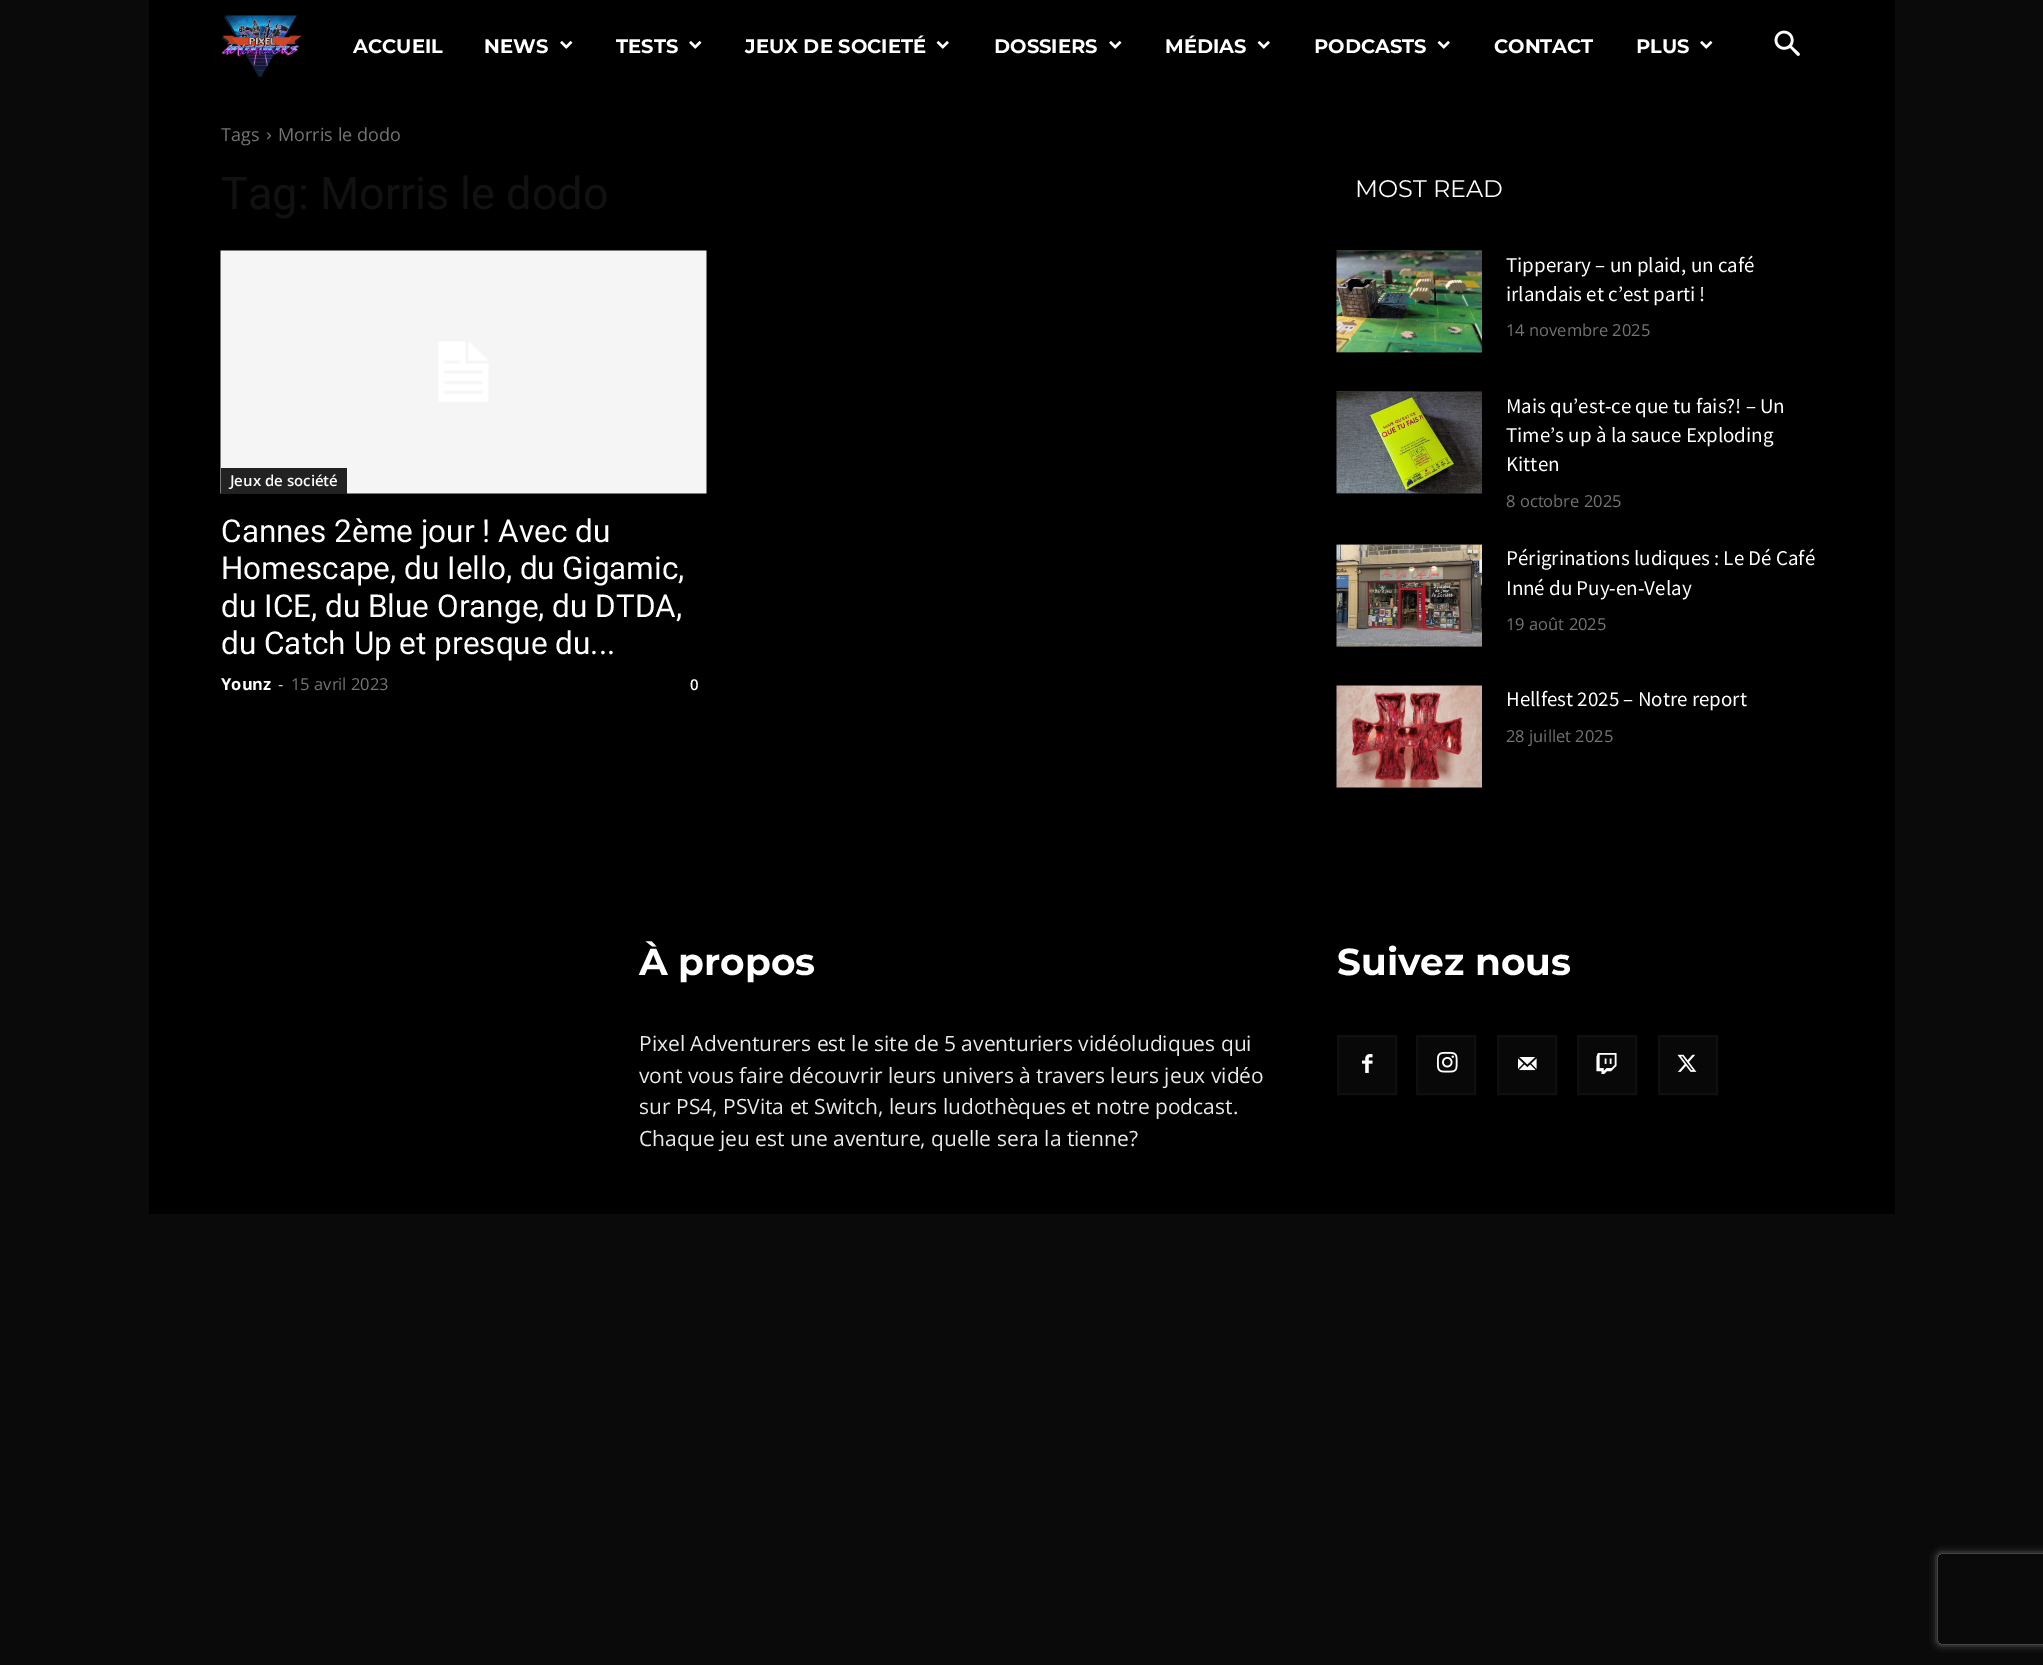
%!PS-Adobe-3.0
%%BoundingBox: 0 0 2043 1665
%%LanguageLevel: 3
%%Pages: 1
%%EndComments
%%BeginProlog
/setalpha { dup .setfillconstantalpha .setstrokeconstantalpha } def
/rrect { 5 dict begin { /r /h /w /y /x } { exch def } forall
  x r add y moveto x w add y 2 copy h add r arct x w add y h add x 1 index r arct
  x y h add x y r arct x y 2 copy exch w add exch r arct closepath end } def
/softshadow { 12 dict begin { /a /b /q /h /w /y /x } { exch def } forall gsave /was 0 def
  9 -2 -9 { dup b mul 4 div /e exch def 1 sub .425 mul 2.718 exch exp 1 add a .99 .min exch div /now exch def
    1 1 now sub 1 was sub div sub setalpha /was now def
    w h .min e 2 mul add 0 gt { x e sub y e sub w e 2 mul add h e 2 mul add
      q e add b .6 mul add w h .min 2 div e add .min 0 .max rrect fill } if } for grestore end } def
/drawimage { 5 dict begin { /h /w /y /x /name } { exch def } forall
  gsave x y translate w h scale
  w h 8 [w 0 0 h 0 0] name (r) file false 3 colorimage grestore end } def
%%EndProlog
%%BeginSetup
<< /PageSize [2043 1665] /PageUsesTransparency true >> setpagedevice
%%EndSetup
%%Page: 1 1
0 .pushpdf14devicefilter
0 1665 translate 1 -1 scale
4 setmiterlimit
0.039 setgray
0 0 2043 1665 rectfill
0 setgray
149 0 1746 1214 rectfill
(images/1.raw) 221 15 81 63 drawimage
(images/2.raw) 560 41 13 8 drawimage
(images/2.raw) 689 41 13 8 drawimage
(images/3.raw) 936 41 13 8 drawimage
(images/2.raw) 1109 41 13 8 drawimage
(images/3.raw) 1257 41 13 8 drawimage
(images/3.raw) 1437 41 13 8 drawimage
(images/2.raw) 1700 41 13 8 drawimage
(images/4.raw) 1774 30 26 26 drawimage
(images/5.raw) 267 132 4 8 drawimage
(images/6.raw) 220 250 487 244 drawimage
0.133 setgray
221 468 126 26 rectfill
(images/7.raw) 1336 250 146 103 drawimage
(images/8.raw) 1336 391 146 103 drawimage
(images/9.raw) 1336 544 146 103 drawimage
(images/10.raw) 1336 685 146 103 drawimage
0.031 setgray
1339 1037 56 56 rectfill
(images/11.raw) 1362 1054 11 19 drawimage
0.059 setgray
2 setlinewidth
1338 1036 58 58 rectstroke
0.031 setgray
1418 1037 56 56 rectfill
(images/12.raw) 1437 1051 21 22 drawimage
0.059 setgray
1417 1036 58 58 rectstroke
0.031 setgray
1499 1037 56 56 rectfill
(images/13.raw) 1518 1057 19 14 drawimage
0.059 setgray
1498 1036 58 58 rectstroke
0.031 setgray
1579 1037 56 56 rectfill
(images/14.raw) 1596 1053 21 21 drawimage
0.059 setgray
1578 1036 58 58 rectstroke
0.031 setgray
1660 1037 56 56 rectfill
(images/15.raw) 1677 1054 20 18 drawimage
0.059 setgray
1659 1036 58 58 rectstroke
gsave
newpath 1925 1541 moveto 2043 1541 lineto 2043 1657 lineto 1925 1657 lineto closepath 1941 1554 moveto 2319 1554 lineto 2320.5 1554 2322 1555.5 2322 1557 curveto 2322 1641 lineto 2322 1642.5 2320.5 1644 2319 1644 curveto 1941 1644 lineto 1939.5 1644 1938 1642.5 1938 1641 curveto 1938 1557 lineto 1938 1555.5 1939.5 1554 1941 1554 curveto closepath eoclip newpath
0.502 setgray
1938 1554 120 90 3 4 1 softshadow
grestore
/Montserrat-Bold [19.5 0 0 -19.5 0 0] selectfont
1 setgray
353 53 moveto (ACCUEIL) show
484 53 moveto (NEWS) show
616 53 moveto (TESTS) show
745 53 moveto (JEUX DE SOCIETÉ) show
994 53 moveto (DOSSIERS) show
1165 53 moveto (MÉDIAS) show
1314 53 moveto (PODCASTS) show
1494 53 moveto (CONTACT) show
1636 53 moveto (PLUS) show
/OpenSans-Regular [18 0 0 -18 0 0] selectfont
0.455 setgray
221 141 moveto (Tags) show
278 141 moveto (Morris le dodo) show
/Roboto-Regular [45 0 0 -45 0 0] selectfont
0.067 setgray
221 209 moveto (Tag: Morris le dodo) show
/OpenSans-SemiBold [15 0 0 -15 0 0] selectfont
1 setgray
230 486 moveto (Jeux de société) show
/Roboto-Regular [31.5 0 0 -31.5 0 0] selectfont
221 542 moveto (Cannes 2ème jour ! Avec du) show
221 579 moveto (Homescape, du Iello, du Gigamic,) show
221 617 moveto (du ICE, du Blue Orange, du DTDA,) show
221 654 moveto (du Catch Up et presque du...) show
/OpenSans-Bold [16.5 0 0 -16.5 0 0] selectfont
221 690 moveto (Younz) show
/OpenSans-Regular [16.5 0 0 -16.5 0 0] selectfont
0.8 setgray
278 690 moveto (-) show
0.455 setgray
291 690 moveto (15 avril 2023) show
/OpenSans-SemiBold [15 0 0 -15 0 0] selectfont
1 setgray
690 690 moveto (0) show
/Montserrat-Regular [24 0 0 -24 0 0] selectfont
1355 197 moveto (MOST READ) show
/SourceSansPro-Regular [21 0 0 -21 0 0] selectfont
1506 272 moveto (Tipperary – un plaid, un café) show
1506 301 moveto (irlandais et c’est parti !) show
/OpenSans-Regular [16.5 0 0 -16.5 0 0] selectfont
0.455 setgray
1506 336 moveto (14 novembre 2025) show
/SourceSansPro-Regular [21 0 0 -21 0 0] selectfont
1 setgray
1506 413 moveto (Mais qu’est-ce que tu fais?! – Un) show
1506 442 moveto (Time’s up à la sauce Exploding) show
1506 471 moveto (Kitten) show
/OpenSans-Regular [16.5 0 0 -16.5 0 0] selectfont
0.455 setgray
1506 507 moveto (8 octobre 2025) show
/SourceSansPro-Regular [21 0 0 -21 0 0] selectfont
1 setgray
1506 565 moveto (Périgrinations ludiques : Le Dé Café) show
1506 595 moveto (Inné du Puy-en-Velay) show
/OpenSans-Regular [16.5 0 0 -16.5 0 0] selectfont
0.455 setgray
1506 630 moveto (19 août 2025) show
/SourceSansPro-Regular [21 0 0 -21 0 0] selectfont
1 setgray
1506 706 moveto (Hellfest 2025 – Notre report) show
/OpenSans-Regular [16.5 0 0 -16.5 0 0] selectfont
0.455 setgray
1506 742 moveto (28 juillet 2025) show
/Montserrat-Bold [37.5 0 0 -37.5 0 0] selectfont
1 setgray
639 975 moveto (À propos) show
/OpenSans-Regular [21 0 0 -21 0 0] selectfont
0.918 setgray
639 1051 moveto (Pixel Adventurers est le site de 5 aventuriers vidéoludiques qui) show
639 1083 moveto (vont vous faire découvrir leurs univers à travers leurs jeux vidéo) show
639 1114 moveto (sur PS4, PSVita et Switch, leurs ludothèques et notre podcast.) show
639 1146 moveto (Chaque jeu est une aventure, quelle sera la tienne?) show
/Montserrat-Bold [37.5 0 0 -37.5 0 0] selectfont
1 setgray
1337 975 moveto (Suivez nous) show
.poppdf14devicefilter showpage
%%EOF
